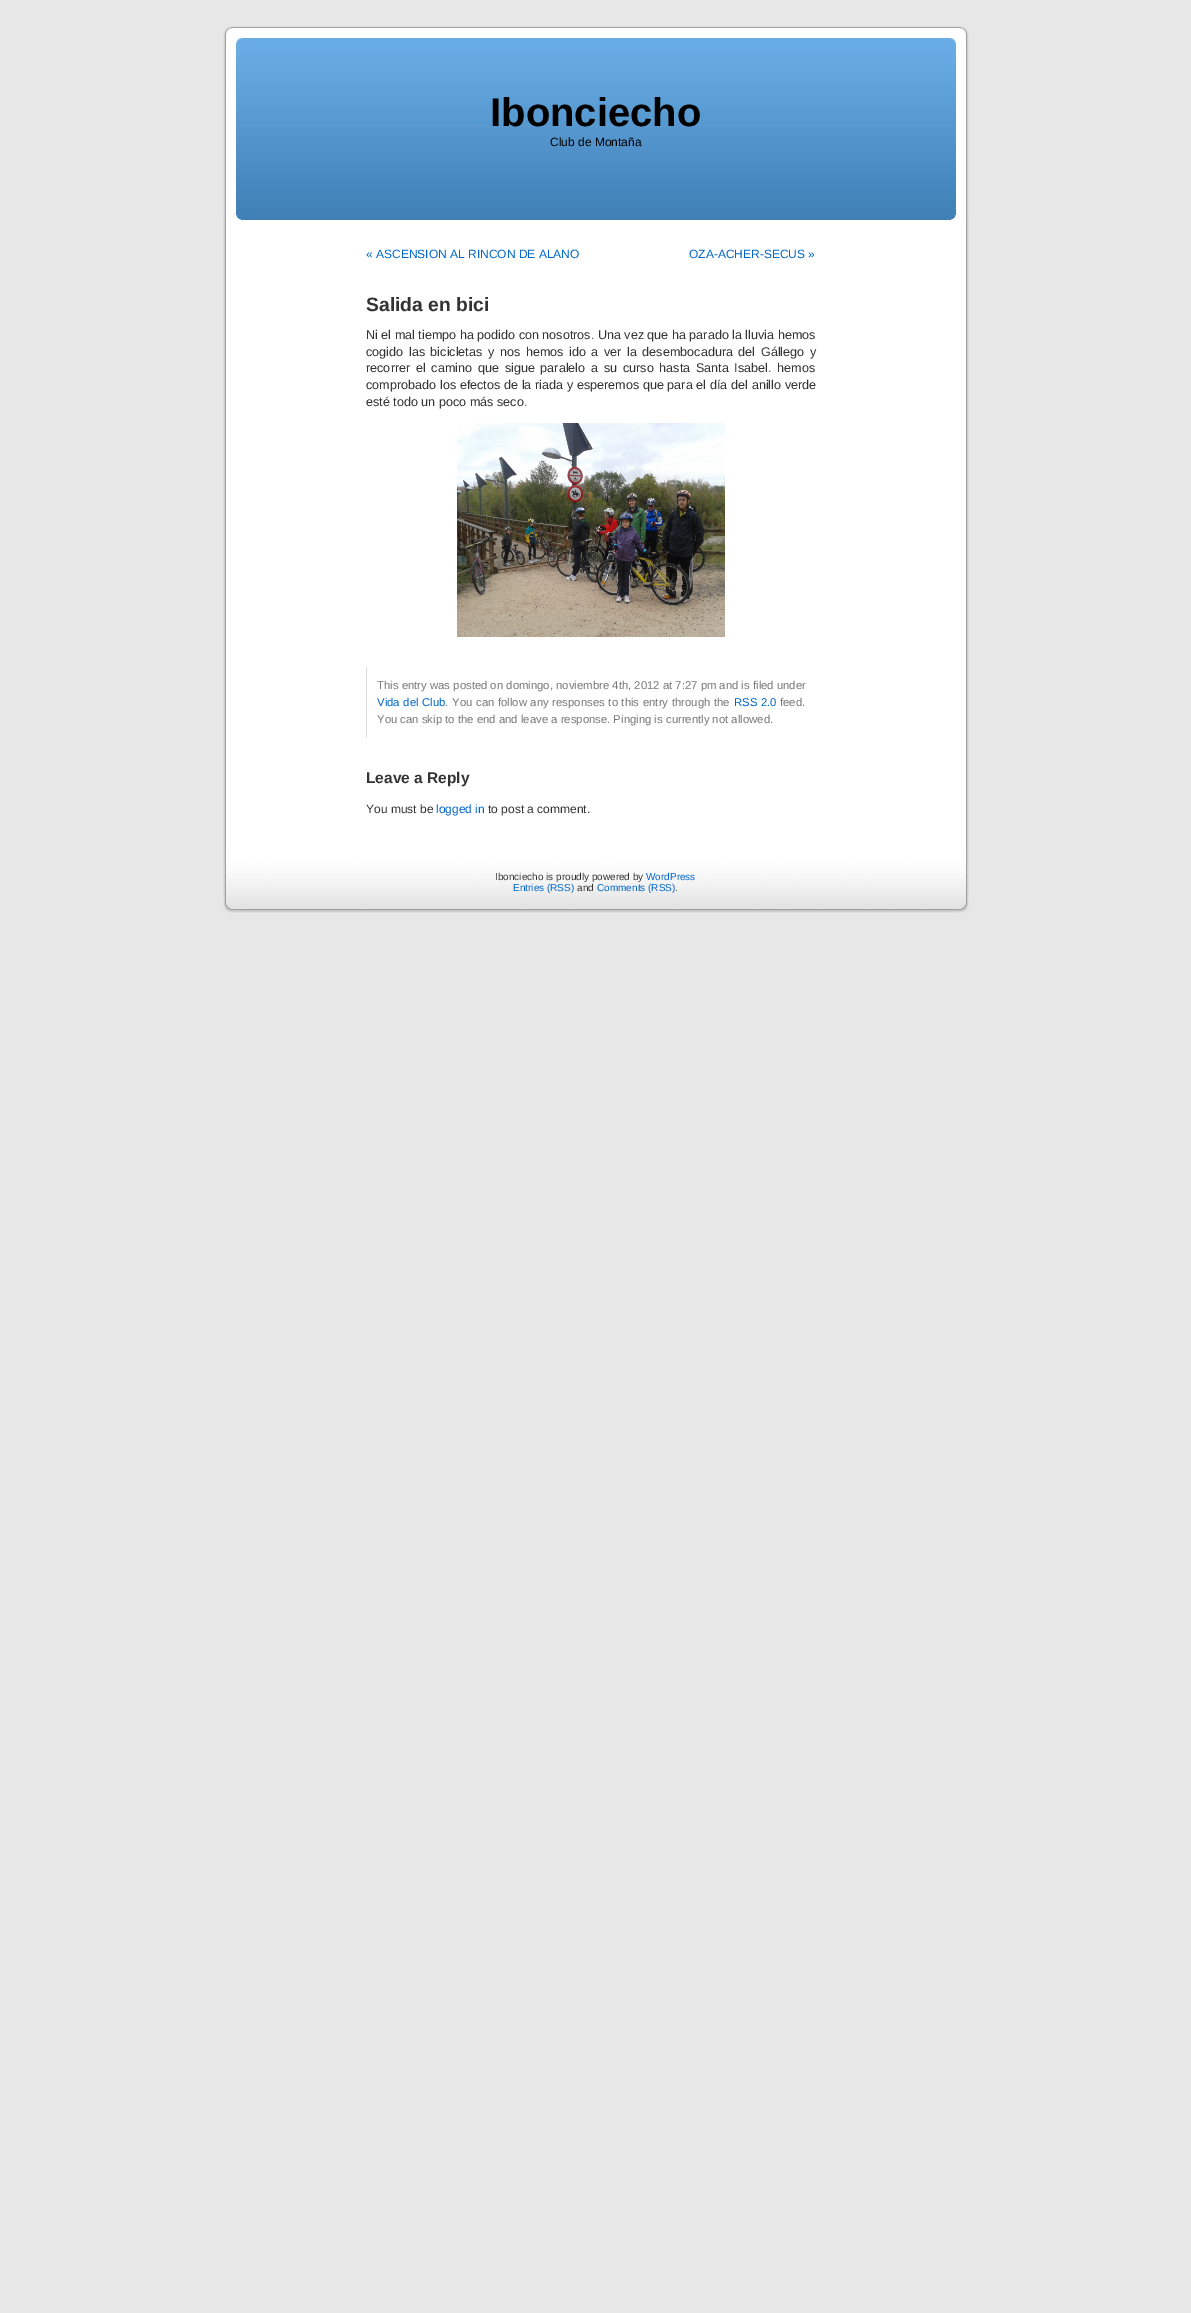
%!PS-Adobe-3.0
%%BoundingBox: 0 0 1191 2313
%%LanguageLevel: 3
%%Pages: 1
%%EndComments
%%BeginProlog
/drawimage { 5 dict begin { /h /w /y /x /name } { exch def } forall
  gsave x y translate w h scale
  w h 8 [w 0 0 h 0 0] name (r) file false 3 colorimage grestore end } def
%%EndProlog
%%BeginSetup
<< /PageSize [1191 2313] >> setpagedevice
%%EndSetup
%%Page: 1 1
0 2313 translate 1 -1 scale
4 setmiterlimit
0.906 setgray
0 0 1191 2313 rectfill
(images/1.raw) 223 220 746 631 drawimage
(images/2.raw) 217 20 758 200 drawimage
(images/3.raw) 457 423 268 214 drawimage
0.867 setgray
366 667 1 71 rectfill
(images/4.raw) 223 851 746 62 drawimage
/LiberationSans-Bold [40 0 0 -40 0 0] selectfont
0 setgray
490 126 moveto (Ibonciecho) show
/LiberationSans-Regular [12 0 0 -12 0 0] selectfont
550 146 moveto (Club de Montaña) show
0 0.4 0.8 setrgbcolor
366 258 moveto (« ASCENSION AL RINCON DE ALANO) show
689 258 moveto (OZA-ACHER-SECUS ») show
/LiberationSans-Bold [19.25 0 0 -19.25 0 0] selectfont
0.2 setgray
366 311 moveto (Salida en bici) show
/LiberationSans-Regular [12.6 0 0 -12.6 0 0] selectfont
366 339 moveto (Ni el mal tiempo ha podido con nosotros. Una vez que ha parado la lluvia hemos) show
366 356 moveto 2.1 0 32 (cogido las bicicletas y nos hemos ido a ver la desembocadura del Gállego y) widthshow
366 372 moveto 2.25 0 32 (recorrer el camino que sigue paralelo a su curso hasta Santa Isabel. hemos) widthshow
366 389 moveto 0.2 0 32 (comprobado los efectos de la riada y esperemos que para el día del anillo verde) widthshow
366 406 moveto (esté todo un poco más seco.) show
/LiberationSans-Regular [11.35 0 0 -11.35 0 0] selectfont
0.467 setgray
377 689 moveto (This entry was posted on domingo, noviembre 4th, 2012 at 7:27 pm and is filed under) show
0 0.4 0.8 setrgbcolor
377 706 moveto 0.5 0 32 (Vida del Club) widthshow
0.467 setgray
445 706 moveto (.) show
452 706 moveto 0.5 0 32 (You can follow any responses to this entry through the) widthshow
0 0.4 0.8 setrgbcolor
734 706 moveto 0.5 0 32 (RSS 2.0) widthshow
0.467 setgray
780 706 moveto (feed.) show
377 723 moveto (You can skip to the end and leave a response. Pinging is currently not allowed.) show
/LiberationSans-Bold [15.5 0 0 -15.5 0 0] selectfont
0.2 setgray
366 783 moveto (Leave a Reply) show
/LiberationSans-Regular [12 0 0 -12 0 0] selectfont
366 813 moveto (You must be) show
0 0.4 0.8 setrgbcolor
436 813 moveto (logged in) show
0.2 setgray
488 813 moveto (to post a comment.) show
/LiberationSans-Regular [10 0 0 -10 0 0] selectfont
495 880 moveto (Ibonciecho is proudly powered by) show
0 0.4 0.8 setrgbcolor
646 880 moveto (WordPress) show
513 891 moveto (Entries \(RSS\)) show
0.2 setgray
577 891 moveto (and) show
0 0.4 0.8 setrgbcolor
597 891 moveto (Comments \(RSS\)) show
0.2 setgray
675 891 moveto (.) show
showpage
%%EOF
